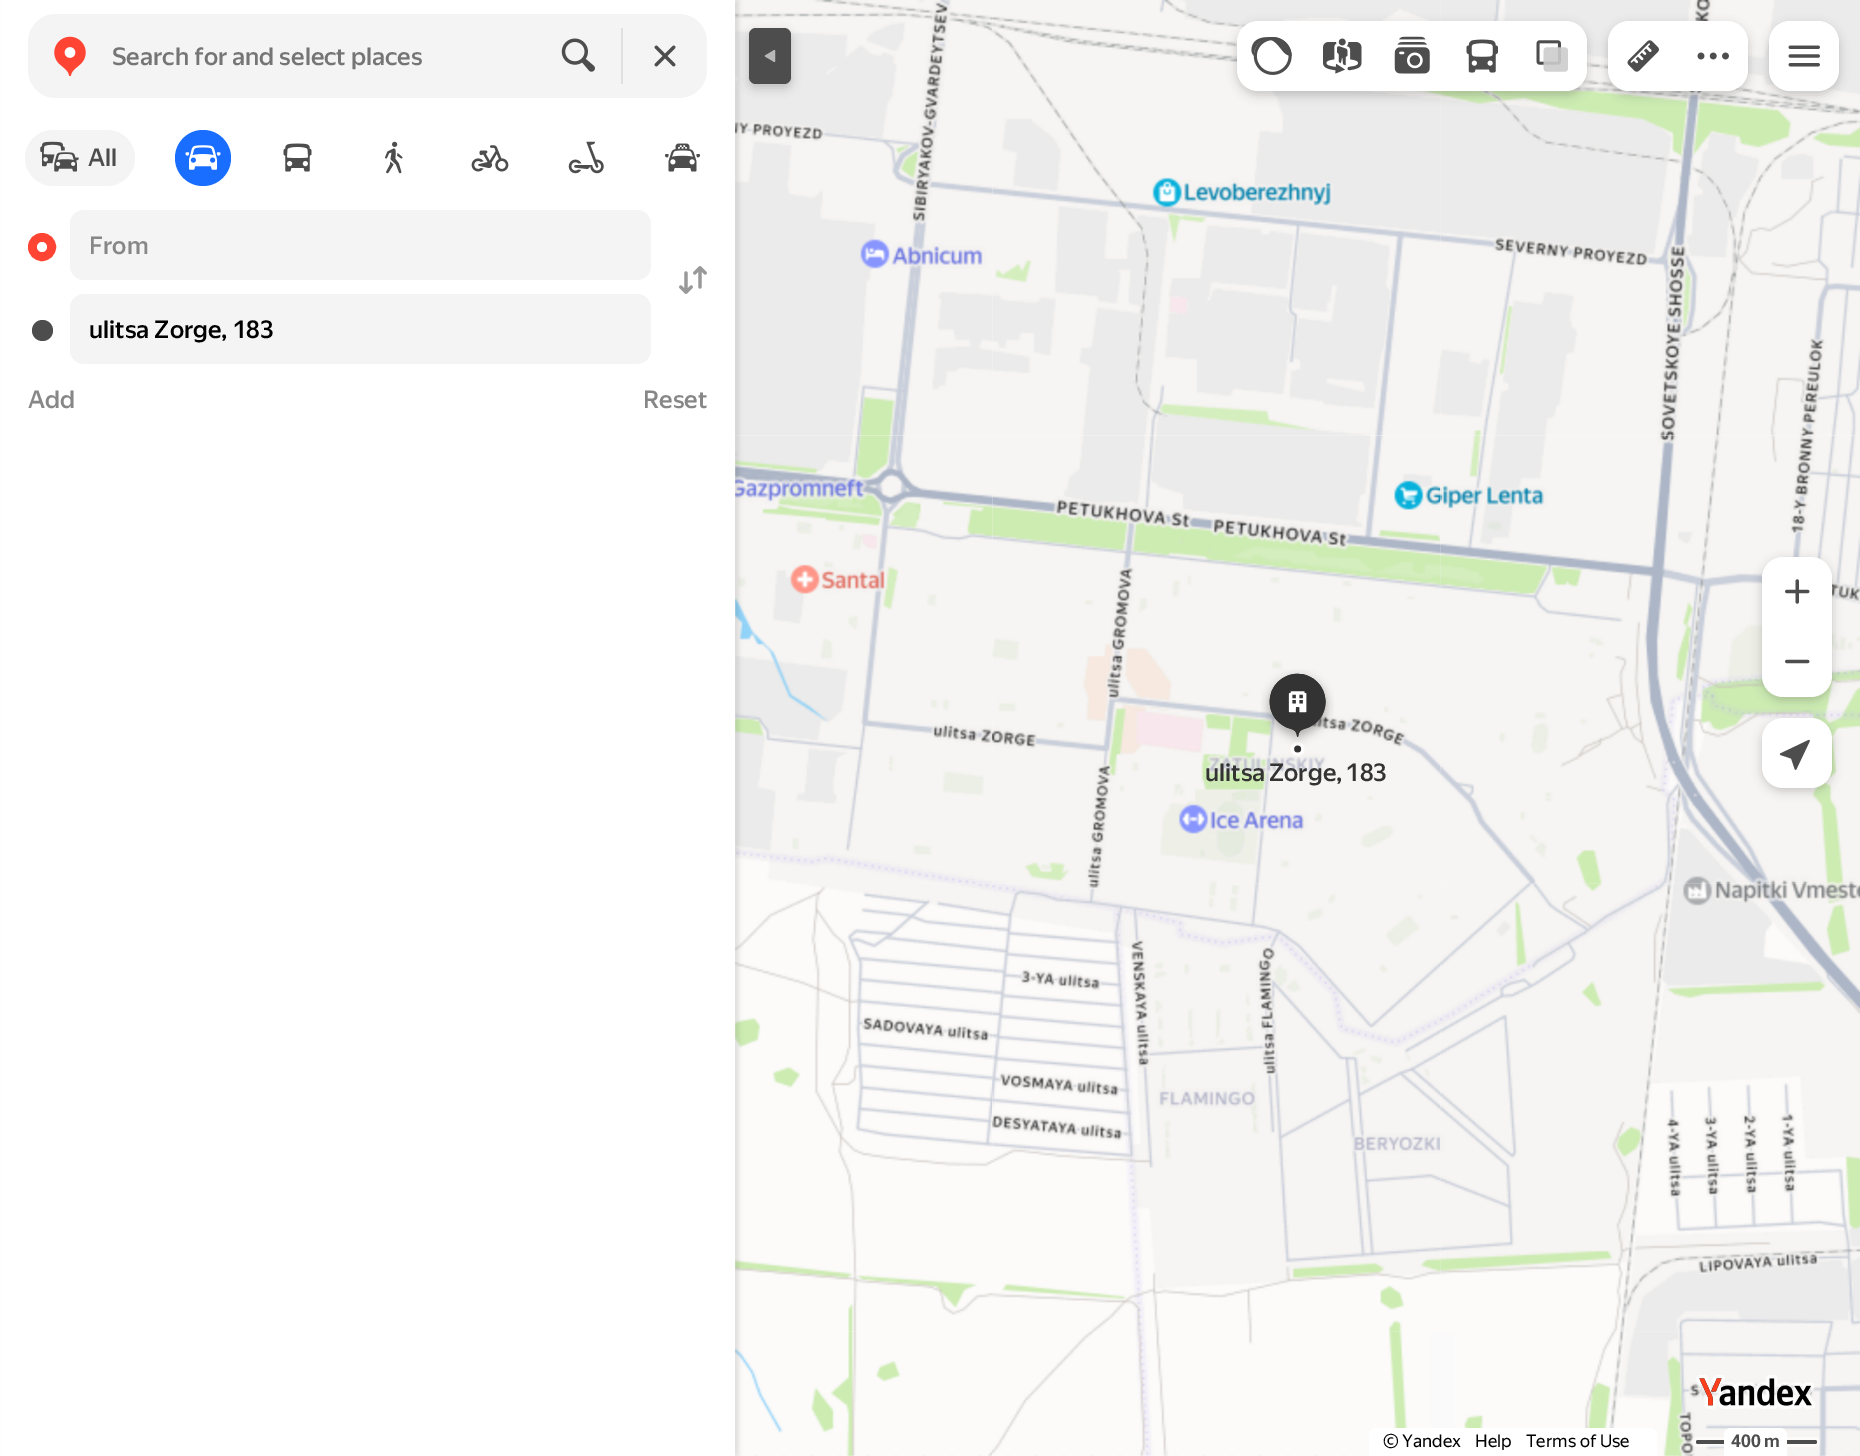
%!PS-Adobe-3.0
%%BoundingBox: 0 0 1860 1456
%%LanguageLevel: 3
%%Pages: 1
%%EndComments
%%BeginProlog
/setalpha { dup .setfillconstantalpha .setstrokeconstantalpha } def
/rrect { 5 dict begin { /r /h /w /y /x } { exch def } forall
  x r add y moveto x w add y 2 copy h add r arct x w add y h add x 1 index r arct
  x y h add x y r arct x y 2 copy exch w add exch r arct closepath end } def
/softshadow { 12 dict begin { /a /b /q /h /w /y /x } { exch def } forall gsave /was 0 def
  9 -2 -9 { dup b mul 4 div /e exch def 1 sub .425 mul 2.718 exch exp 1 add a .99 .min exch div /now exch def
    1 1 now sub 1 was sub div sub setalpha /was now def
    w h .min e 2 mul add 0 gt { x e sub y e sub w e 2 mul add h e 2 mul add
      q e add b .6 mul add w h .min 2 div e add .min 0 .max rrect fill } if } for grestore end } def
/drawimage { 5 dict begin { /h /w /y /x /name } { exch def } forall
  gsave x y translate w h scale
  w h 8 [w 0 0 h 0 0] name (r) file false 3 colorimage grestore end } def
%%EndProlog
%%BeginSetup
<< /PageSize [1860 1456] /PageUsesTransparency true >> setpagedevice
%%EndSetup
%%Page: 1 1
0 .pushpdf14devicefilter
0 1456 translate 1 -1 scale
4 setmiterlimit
1 setgray
0 0 1860 1456 rectfill
(images/1.raw) 735 0 1125 1456 drawimage
(images/27.raw) 992 0 449 436 drawimage
(images/28.raw) 1440 0 420 436 drawimage
(images/30.raw) 992 435 449 449 drawimage
(images/31.raw) 1440 435 420 449 drawimage
(images/33.raw) 992 883 449 449 drawimage
(images/29.raw) 735 435 258 449 drawimage
(images/26.raw) 735 0 257 436 drawimage
(images/32.raw) 735 883 257 449 drawimage
(images/35.raw) 735 1331 257 125 drawimage
0 setgray
4 0 735 1456 0 2 0.1 softshadow
749 32 42 56 7 5 0.2 softshadow
1 setgray
1 0 734 1456 rectfill
0.957 setgray
28 14 679 84 28 rrect fill
(images/2.raw) 54 36 32 41 drawimage
(images/3.raw) 561 38 34 34 drawimage
0.878 setgray
621 28 2 56 rectfill
(images/4.raw) 654 45 22 22 drawimage
0 setgray
1237 25 350 70 21 5 0.2 softshadow
1 setgray
newpath 1258 21 moveto 1307 21 lineto 1307 91 lineto 1258 91 lineto 1246.5 91 1237 81.5 1237 70 curveto 1237 42 lineto 1237 30.5 1246.5 21 1258 21 curveto closepath fill
(images/5.raw) 1251 37 41 38 drawimage
1307 21 210 70 rectfill
(images/6.raw) 1323 38 39 36 drawimage
newpath 1517 21 moveto 1566 21 lineto 1577.5 21 1587 30.5 1587 42 curveto 1587 70 lineto 1587 81.5 1577.5 91 1566 91 curveto 1517 91 lineto closepath fill
(images/7.raw) 1536 40 32 32 drawimage
(images/8.raw) 1394 36 36 38 drawimage
(images/9.raw) 1466 39 32 34 drawimage
0 setgray
1608 25 140 70 21 5 0.2 softshadow
1 setgray
newpath 1629 21 moveto 1678 21 lineto 1678 91 lineto 1629 91 lineto 1617.5 91 1608 81.5 1608 70 curveto 1608 42 lineto 1608 30.5 1617.5 21 1629 21 curveto closepath fill
(images/10.raw) 1627 40 32 32 drawimage
newpath 1678 21 moveto 1727 21 lineto 1738.5 21 1748 30.5 1748 42 curveto 1748 70 lineto 1748 81.5 1738.5 91 1727 91 curveto 1678 91 lineto closepath fill
(images/11.raw) 1697 52 32 8 drawimage
0 setgray
1769 25 70 70 21 5 0.2 softshadow
1 setgray
1769 21 70 70 21 rrect fill
(images/12.raw) 1788 45 32 22 drawimage
0 setgray
1762 560 70 140 21 5 0.2 softshadow
1 setgray
newpath 1783 557 moveto 1811 557 lineto 1822.5 557 1832 566.5 1832 578 curveto 1832 627 lineto 1762 627 lineto 1762 578 lineto 1762 566.5 1771.5 557 1783 557 curveto closepath fill
(images/13.raw) 1785 579 25 25 drawimage
newpath 1762 627 moveto 1832 627 lineto 1832 676 lineto 1832 687.5 1822.5 697 1811 697 curveto 1783 697 lineto 1771.5 697 1762 687.5 1762 676 curveto closepath fill
(images/14.raw) 1785 659 25 5 drawimage
0 setgray
1762 721 70 70 21 5 0.2 softshadow
1 setgray
1762 718 70 70 21 rrect fill
(images/15.raw) 1779 739 31 31 drawimage
0.302 setgray
749 28 42 56 7 rrect fill
(images/16.raw) 764 49 12 14 drawimage
0.957 setgray
25 130 110 56 28 rrect fill
(images/17.raw) 40 141 39 31 drawimage
0.098 0.427 1 setrgbcolor
newpath 203 158 28 0 360 arc closepath fill
(images/18.raw) 185 145 36 25 drawimage
(images/19.raw) 283 143 29 29 drawimage
(images/20.raw) 385 141 18 33 drawimage
(images/21.raw) 471 145 38 27 drawimage
(images/22.raw) 568 141 36 33 drawimage
(images/23.raw) 665 143 35 29 drawimage
1 0.267 0.2 setrgbcolor
newpath 42 247 12 0 360 arc closepath gsave fill grestore
4 setlinewidth
stroke
1 setgray
newpath 42 247 5 0 360 arc closepath fill
0.957 setgray
70 210 581 70 14 rrect fill
0.302 setgray
newpath 42.5 330.5 10.5 0 360 arc closepath fill
0.957 setgray
70 294 581 70 14 rrect fill
(images/24.raw) 679 266 28 28 drawimage
(images/34.raw) 1440 883 420 449 drawimage
(images/37.raw) 1454 1331 406 125 drawimage
(images/25.raw) 1696 1375 119 34 drawimage
(images/36.raw) 992 1331 438 125 drawimage
1 setgray
newpath 1376 1428 moveto 1650 1428 lineto 1654 1428 1657 1431 1657 1435 curveto 1657 1456 lineto 1369 1456 lineto 1369 1435 lineto 1369 1431 1372 1428 1376 1428 curveto closepath fill
0.6 setalpha
1692 1437 128 10 5 rrect fill
1 setalpha
0.302 setgray
1696 1440 121 4 2 rrect fill
1 setgray
newpath 1731 1428 moveto 1780 1428 lineto 1784 1428 1787 1431 1787 1435 curveto 1787 1456 lineto 1724 1456 lineto 1724 1435 lineto 1724 1431 1727 1428 1731 1428 curveto closepath fill
(images/38.raw) 1261 669 73 87 drawimage
(images/39.raw) 1288 691 19 22 drawimage
/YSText-Medium [24.5 0 0 -24.5 0 0] selectfont
0.459 setgray
112 65 moveto (Search for and select places) show
0.302 setgray
88 166 moveto (All) show
0.529 setgray
89 254 moveto (From) show
0 setgray
89 338 moveto (ulitsa Zorge, 183) show
0.529 setgray
28 408 moveto (Add) show
643 408 moveto (Reset) show
/YSText-Regular [17.5 0 0 -17.5 0 0] selectfont
0 setgray
1383 1447 moveto (© Yandex) show
1475 1447 moveto (Help) show
1526 1447 moveto (Terms of Use) show
/YSText-Bold [17.5 0 0 -17.5 0 0] selectfont
0.302 setgray
1731 1447 moveto (400 m) show
/YSText-Medium [24.5 0 0 -24.5 0 0] selectfont
0.2 setgray
1205 781 moveto (ulitsa) show
1269 781 moveto (Zorge,) show
1346 781 moveto (183) show
.poppdf14devicefilter showpage
%%EOF
